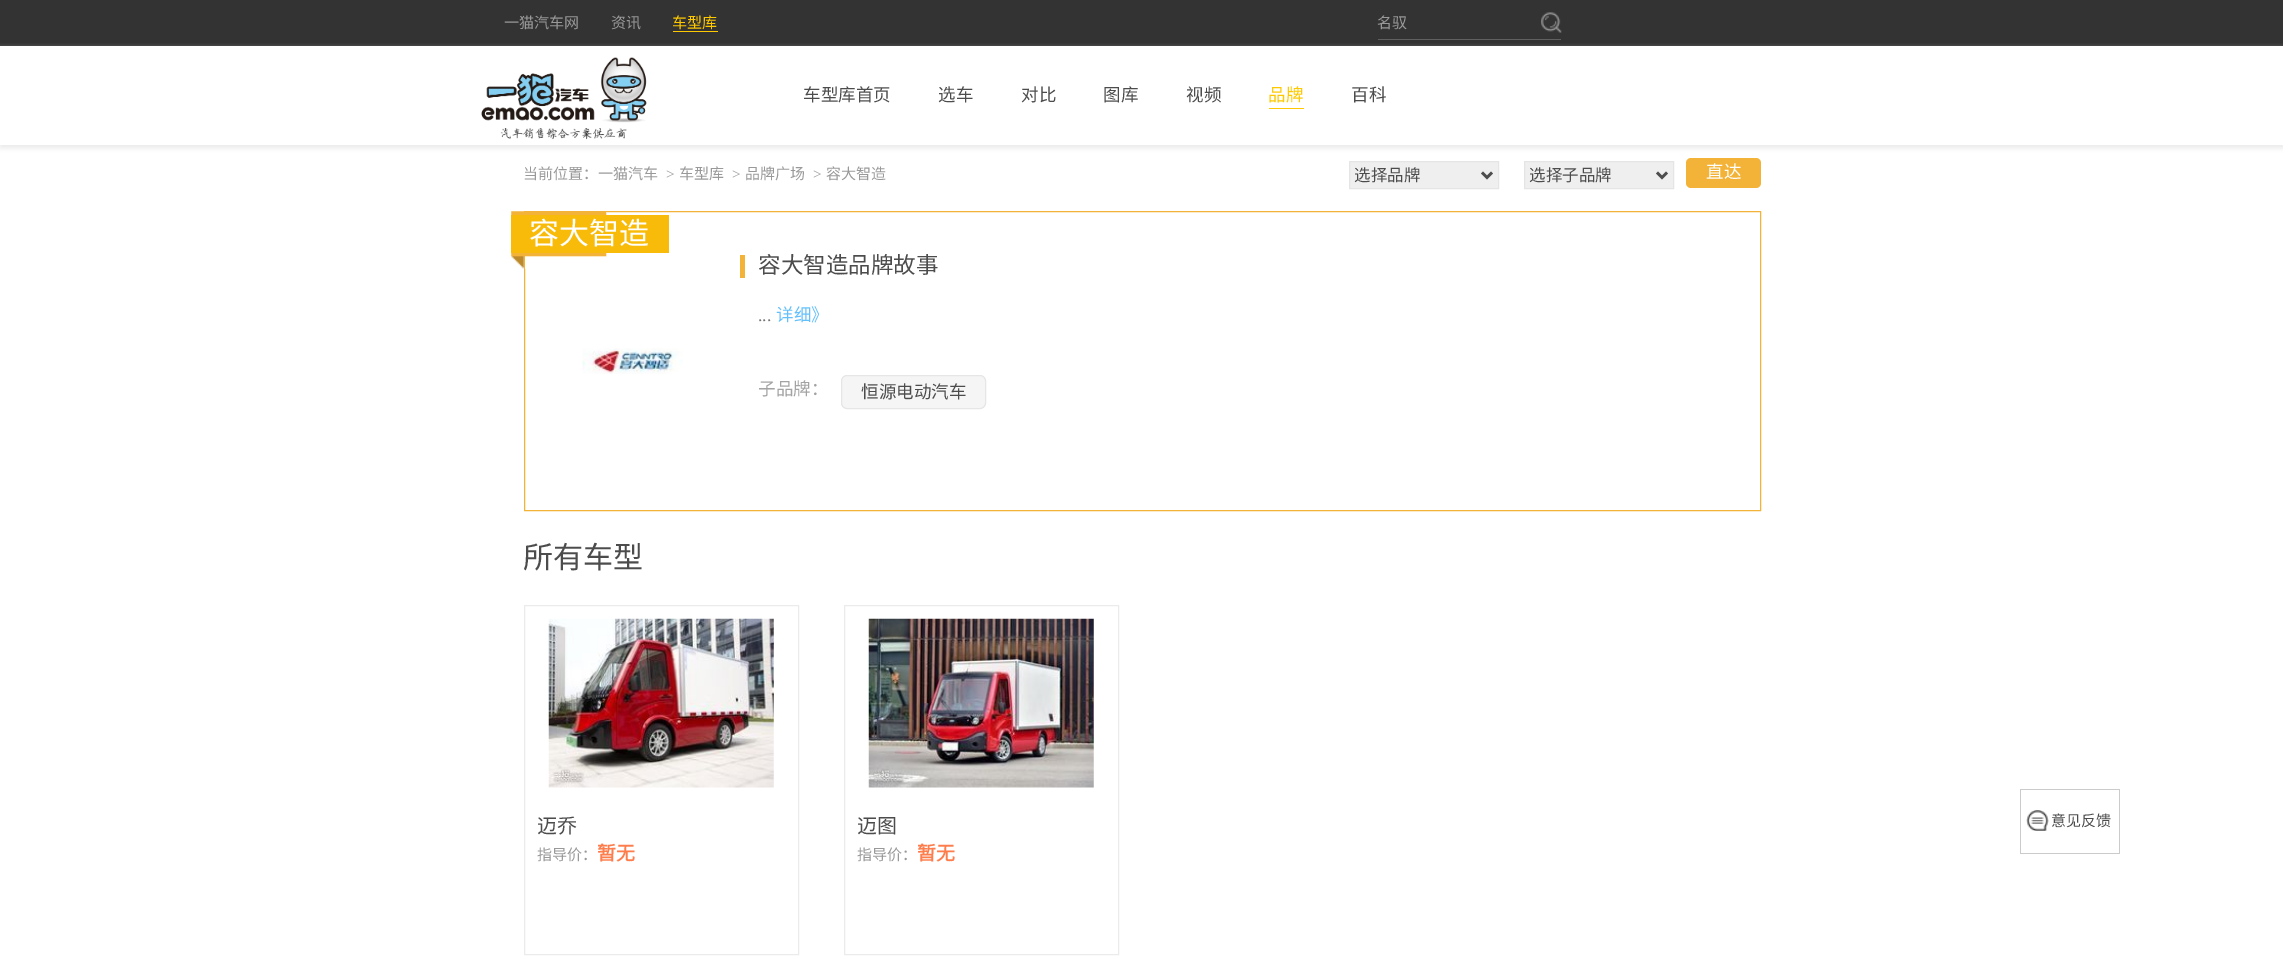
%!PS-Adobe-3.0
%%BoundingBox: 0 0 2283 972
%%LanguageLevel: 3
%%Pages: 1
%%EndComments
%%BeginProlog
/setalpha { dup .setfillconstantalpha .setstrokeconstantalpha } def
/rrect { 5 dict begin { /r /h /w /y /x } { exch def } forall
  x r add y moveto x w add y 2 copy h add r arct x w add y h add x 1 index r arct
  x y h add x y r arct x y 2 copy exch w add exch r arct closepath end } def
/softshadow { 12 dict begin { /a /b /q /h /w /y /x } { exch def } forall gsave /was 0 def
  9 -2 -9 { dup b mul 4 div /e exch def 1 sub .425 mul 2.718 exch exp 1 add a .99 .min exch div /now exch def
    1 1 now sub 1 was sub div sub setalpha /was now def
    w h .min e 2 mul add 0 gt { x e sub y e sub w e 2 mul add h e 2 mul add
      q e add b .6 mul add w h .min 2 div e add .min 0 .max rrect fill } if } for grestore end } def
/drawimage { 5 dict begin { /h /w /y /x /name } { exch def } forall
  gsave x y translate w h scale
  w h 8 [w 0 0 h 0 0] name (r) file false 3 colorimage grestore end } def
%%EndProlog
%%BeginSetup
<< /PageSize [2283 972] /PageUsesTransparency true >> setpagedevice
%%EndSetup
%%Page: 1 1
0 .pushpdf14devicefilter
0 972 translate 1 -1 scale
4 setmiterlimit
1 setgray
0 0 2283 972 rectfill
0.2 setgray
0 0 2283 46 rectfill
0.996 0.788 0 setrgbcolor
673 31 45 1 rectfill
0.376 setgray
1378 39 183 1 rectfill
(images/1.raw) 1541 12 21 21 drawimage
gsave
newpath 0 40 moveto 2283 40 lineto 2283 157 lineto 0 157 lineto closepath 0 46 moveto 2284 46 lineto 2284 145 lineto 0 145 lineto closepath eoclip newpath
0.918 setgray
0 49 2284 99 0 2.5 1 softshadow
grestore
(images/2.raw) 481 57 166 83 drawimage
0.996 0.788 0 setrgbcolor
1269 108 35 1 rectfill
0.937 setgray
newpath 1349.5 161.5 moveto 1498.5 161.5 lineto 1498.5 188.5 lineto 1349.5 188.5 lineto closepath gsave fill grestore
0.898 setgray
stroke
0.302 setgray
2.5 setlinewidth
newpath 1482 172.5 moveto 1487 177.5 lineto 1492 172.5 lineto stroke
0.937 setgray
newpath 1524.5 161.5 moveto 1673.5 161.5 lineto 1673.5 188.5 lineto 1524.5 188.5 lineto closepath gsave fill grestore
0.898 setgray
1 setlinewidth
stroke
0.302 setgray
2.5 setlinewidth
newpath 1657 172.5 moveto 1662 177.5 lineto 1667 172.5 lineto stroke
0.953 0.702 0.22 setrgbcolor
1686 158 75 30 5 rrect fill
1 setlinewidth
524.5 211.5 1236 299 rectstroke
(images/3.raw) 511 211 96 58 drawimage
0.973 0.733 0.039 setrgbcolor
511 215 158 38 rectfill
(images/4.raw) 582 348 101 26 drawimage
0.953 0.702 0.22 setrgbcolor
740 255 5 23 rectfill
0.961 setgray
841.5 375.5 144 33 5.5 rrect gsave fill grestore
0.902 setgray
stroke
0.922 setgray
524.5 605.5 274 349 rectstroke
(images/5.raw) 548 618 226 170 drawimage
844.5 605.5 274 349 rectstroke
(images/6.raw) 868 618 226 170 drawimage
0.796 setgray
2020 789 100 1 rectfill
2119 790 1 64 rectfill
2020 853 100 1 rectfill
2020 790 1 64 rectfill
(images/7.raw) 2026 810 23 21 drawimage
/NotoSansCJKSC-Regular [15 0 0 -15 0 0] selectfont
0.6 setgray
504 28 moveto (一猫汽车网) show
611 28 moveto (资讯) show
0.996 0.788 0 setrgbcolor
672 28 moveto (车型库) show
0.6 setgray
1377 28 moveto (名驭) show
/NotoSansCJKSC-Regular [17.5 0 0 -17.5 0 0] selectfont
0.298 setgray
803 101 moveto (车型库首页) show
938 101 moveto (选车) show
1021 101 moveto (对比) show
1103 101 moveto (图库) show
1186 101 moveto (视频) show
0.996 0.788 0 setrgbcolor
1268 101 moveto (品牌) show
0.298 setgray
1351 101 moveto (百科) show
/NotoSansCJKSC-Regular [15 0 0 -15 0 0] selectfont
0.6 setgray
523 179 moveto (当前位置：一猫汽车) show
/LiberationSerif-Regular [15 0 0 -15 0 0] selectfont
666 179 moveto (>) show
/NotoSansCJKSC-Regular [15 0 0 -15 0 0] selectfont
679 179 moveto (车型库) show
/LiberationSerif-Regular [15 0 0 -15 0 0] selectfont
732 179 moveto (>) show
/NotoSansCJKSC-Regular [15 0 0 -15 0 0] selectfont
745 179 moveto (品牌广场) show
/LiberationSerif-Regular [15 0 0 -15 0 0] selectfont
813 179 moveto (>) show
/NotoSansCJKSC-Regular [15 0 0 -15 0 0] selectfont
826 179 moveto (容大智造) show
/NotoSansCJKSC-Regular [16.5 0 0 -16.5 0 0] selectfont
0.298 setgray
1354 181 moveto (选择品牌) show
1529 181 moveto (选择子品牌) show
/NotoSansCJKSC-Regular [17.5 0 0 -17.5 0 0] selectfont
1 setgray
1706 178 moveto (直达) show
/NotoSansCJKSC-Regular [30 0 0 -30 0 0] selectfont
529 244 moveto (容大智造) show
/NotoSansCJKSC-Regular [22.5 0 0 -22.5 0 0] selectfont
0.298 setgray
758 273 moveto (容大智造品牌故事) show
/LiberationSerif-Regular [17.5 0 0 -17.5 0 0] selectfont
0.451 setgray
758 321 moveto (...) show
/NotoSansCJKSC-Regular [17.5 0 0 -17.5 0 0] selectfont
0.392 0.753 0.988 setrgbcolor
776 321 moveto (详细》) show
0.639 setgray
758 395 moveto (子品牌：) show
0.298 setgray
861 398 moveto (恒源电动汽车) show
/NotoSansCJKSC-Regular [30 0 0 -30 0 0] selectfont
523 568 moveto (所有车型) show
/NotoSansCJKSC-Regular [20 0 0 -20 0 0] selectfont
537 833 moveto (迈乔) show
/NotoSansCJKSC-Regular [15 0 0 -15 0 0] selectfont
0.6 setgray
537 860 moveto (指导价：) show
/NotoSansCJKSC-Bold [19 0 0 -19 0 0] selectfont
0.992 0.49 0.302 setrgbcolor
597 860 moveto (暂无) show
/NotoSansCJKSC-Regular [20 0 0 -20 0 0] selectfont
0.298 setgray
857 833 moveto (迈图) show
/NotoSansCJKSC-Regular [15 0 0 -15 0 0] selectfont
0.6 setgray
857 860 moveto (指导价：) show
/NotoSansCJKSC-Bold [19 0 0 -19 0 0] selectfont
0.992 0.49 0.302 setrgbcolor
917 860 moveto (暂无) show
/NotoSansCJKSC-Regular [15 0 0 -15 0 0] selectfont
0.298 setgray
2051 826 moveto (意见反馈) show
.poppdf14devicefilter showpage
%%EOF
